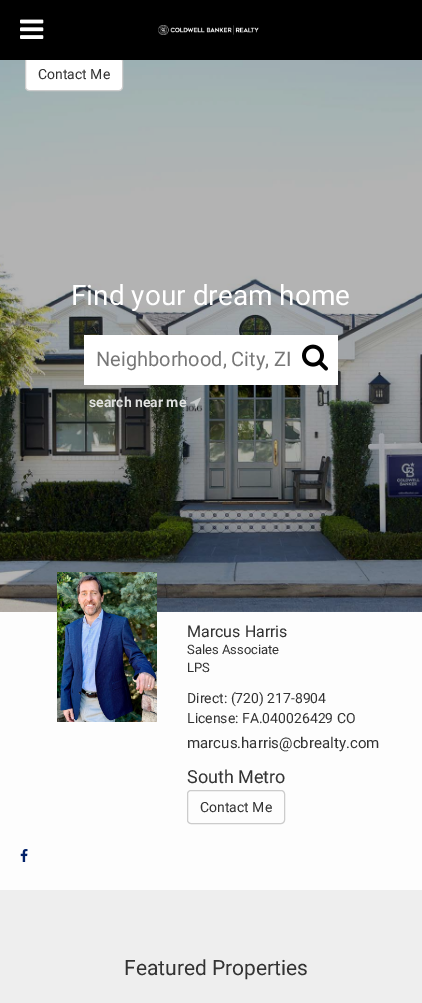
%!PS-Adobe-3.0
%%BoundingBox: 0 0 422 1003
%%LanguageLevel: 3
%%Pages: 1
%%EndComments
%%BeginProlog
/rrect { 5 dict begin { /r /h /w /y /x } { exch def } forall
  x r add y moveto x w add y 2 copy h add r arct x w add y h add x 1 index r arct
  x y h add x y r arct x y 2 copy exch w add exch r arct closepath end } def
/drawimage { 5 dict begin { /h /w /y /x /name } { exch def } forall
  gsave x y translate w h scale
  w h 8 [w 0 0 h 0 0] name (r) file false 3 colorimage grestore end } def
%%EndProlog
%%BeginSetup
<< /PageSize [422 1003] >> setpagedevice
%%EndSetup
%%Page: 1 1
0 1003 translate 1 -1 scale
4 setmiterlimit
0.992 setgray
0 0 422 1003 rectfill
(images/3.raw) 0 60 422 552 drawimage
1 setgray
25.5 57.5 97 33 3.5 rrect gsave fill grestore
0.8 setgray
stroke
0 setgray
0 0 422 60 rectfill
(images/1.raw) 20 19 24 20 drawimage
(images/2.raw) 158 25 101 10 drawimage
1 setgray
84 335 254 50 rectfill
(images/4.raw) 302 344 26 27 drawimage
(images/5.raw) 190 397 11 12 drawimage
(images/6.raw) 57 572 100 150 drawimage
0.8 setgray
187.5 790.5 97 33 3.5 rrect stroke
(images/7.raw) 20 849 8 13 drawimage
0.933 setgray
0 890 422 113 rectfill
/Roboto-Regular [14 0 0 -14 0 0] selectfont
0.2 setgray
38 79 moveto (Contact Me) show
/Roboto-Regular [28 0 0 -28 0 0] selectfont
1 setgray
71 305 moveto (Find your dream home) show
/Roboto-Regular [20 0 0 -20 0 0] selectfont
0.467 setgray
96 366 moveto (Neighborhood, City, ZI) show
/Roboto-Bold [14 0 0 -14 0 0] selectfont
0.882 0.886 0.882 setrgbcolor
89 407 moveto (search near me) show
/Roboto-Regular [16 0 0 -16 0 0] selectfont
0.2 setgray
187 637 moveto (Marcus Harris) show
/Roboto-Regular [13 0 0 -13 0 0] selectfont
187 654 moveto (Sales Associate) show
187 672 moveto (LPS) show
/Roboto-Regular [14 0 0 -14 0 0] selectfont
187 703 moveto (Direct: \(720\) 217-8904) show
187 723 moveto (License: FA.040026429 CO) show
/Roboto-Regular [15 0 0 -15 0 0] selectfont
187 748 moveto (marcus.harris@cbrealty.com) show
/Roboto-Regular [18 0 0 -18 0 0] selectfont
187 783 moveto (South Metro) show
/Roboto-Regular [14 0 0 -14 0 0] selectfont
200 812 moveto (Contact Me) show
/Roboto-Regular [21 0 0 -21 0 0] selectfont
124 975 moveto (Featured Properties) show
showpage
%%EOF
